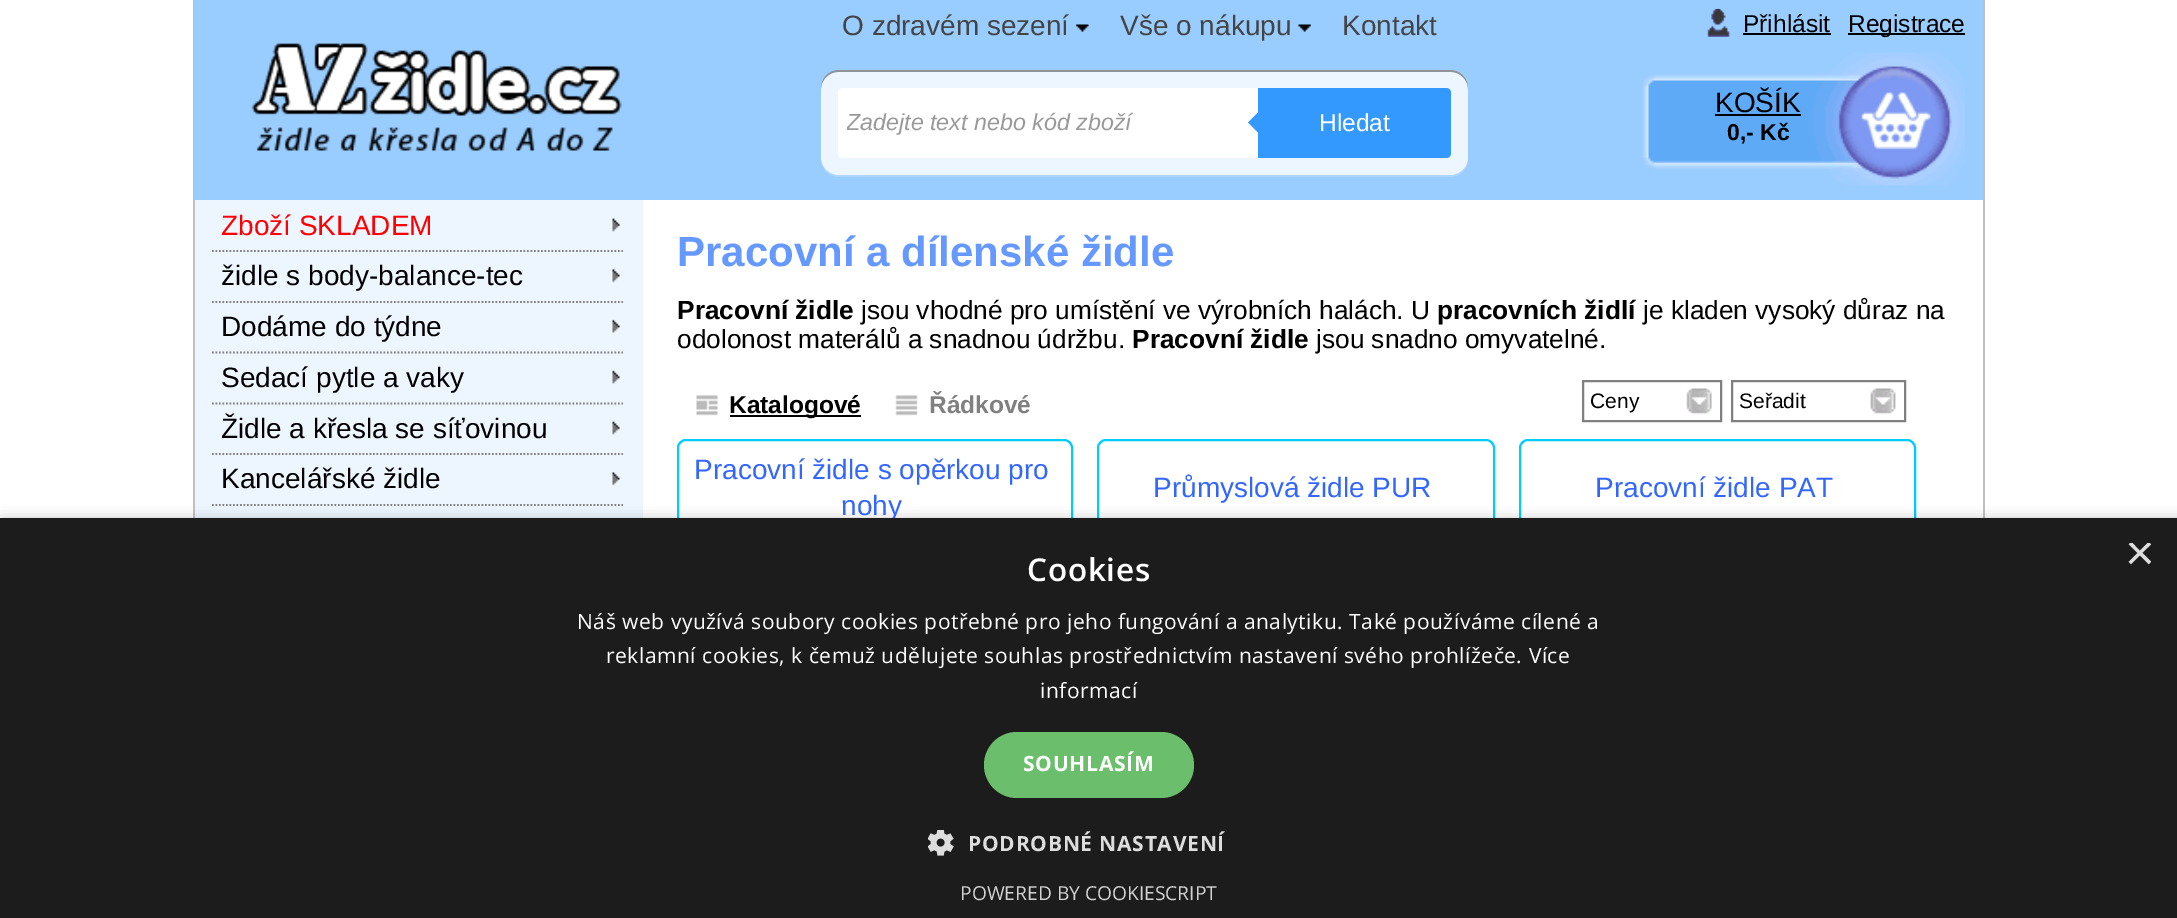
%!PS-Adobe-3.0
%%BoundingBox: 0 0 2177 918
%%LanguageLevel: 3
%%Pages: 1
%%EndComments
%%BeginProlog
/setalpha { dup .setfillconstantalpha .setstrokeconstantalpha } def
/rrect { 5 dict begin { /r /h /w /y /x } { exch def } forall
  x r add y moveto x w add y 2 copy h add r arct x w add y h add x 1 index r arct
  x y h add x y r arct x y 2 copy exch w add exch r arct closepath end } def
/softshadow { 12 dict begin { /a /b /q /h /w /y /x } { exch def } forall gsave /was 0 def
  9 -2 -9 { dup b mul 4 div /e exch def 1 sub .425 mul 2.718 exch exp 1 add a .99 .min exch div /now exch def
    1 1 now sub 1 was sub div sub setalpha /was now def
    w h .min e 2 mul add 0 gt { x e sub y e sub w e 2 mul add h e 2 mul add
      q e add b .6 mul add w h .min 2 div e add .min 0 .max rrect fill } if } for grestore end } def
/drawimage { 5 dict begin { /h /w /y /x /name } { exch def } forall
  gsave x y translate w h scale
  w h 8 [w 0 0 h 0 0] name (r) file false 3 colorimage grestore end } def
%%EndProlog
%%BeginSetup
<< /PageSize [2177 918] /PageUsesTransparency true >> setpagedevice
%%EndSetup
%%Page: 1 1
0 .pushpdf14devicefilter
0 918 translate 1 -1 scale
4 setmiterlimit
1 setgray
0 0 2177 918 rectfill
0.929 0.965 0.996 setrgbcolor
195 200 448 318 rectfill
0.753 setgray
1983 0 2 518 rectfill
193 0 2 518 rectfill
0.6 0.8 1 setrgbcolor
194 0 1789 200 rectfill
(images/1.raw) 1076 24 13 8 drawimage
(images/2.raw) 1298 24 13 8 drawimage
(images/3.raw) 1707 8 23 29 drawimage
0 setgray
1743 33 88 2 rectfill
1848 33 117 2 rectfill
(images/4.raw) 251 43 371 108 drawimage
(images/5.raw) 1642 52 323 134 drawimage
1715 114 86 2 rectfill
0.678 0.839 1 setrgbcolor
newpath 821 161 moveto 822 170 830 177 839 177 curveto 1450 177 lineto 1459 177 1467 170 1468 161 curveto 1466 169 1459 175 1451 175 curveto 838 175 lineto 830 175 823 169 821 161 curveto closepath fill
0.929 0.965 0.996 setrgbcolor
821 70 647 105 18 rrect fill
0.4 setalpha
0 setgray
newpath 838 72 moveto 1451 72 lineto 1460 72 1468 80 1468 89 curveto 1468 88 lineto 1468 78 1460 70 1450 70 curveto 839 70 lineto 829 70 821 78 821 88 curveto 821 89 lineto 821 80 829 72 838 72 curveto closepath fill
1 setalpha
1 setgray
newpath 843 88 moveto 1258 88 lineto 1258 158 lineto 843 158 lineto 840 158 838 156 838 153 curveto 838 93 lineto 838 90 840 88 843 88 curveto closepath fill
0.2 0.6 1 setrgbcolor
newpath 1258 88 moveto 1446 88 lineto 1449 88 1451 90 1451 93 curveto 1451 153 lineto 1451 156 1449 158 1446 158 curveto 1258 158 lineto closepath fill
newpath 1262 108.5 moveto 1262 136.5 lineto 1248 122.5 lineto closepath fill
0.502 setgray
1.8 setlinewidth
[1.75 1.75] 0 setdash
newpath 212 251 moveto 623 251 lineto stroke
(images/6.raw) 612 218 8 14 drawimage
newpath 212 302 moveto 623 302 lineto stroke
(images/7.raw) 612 269 8 14 drawimage
newpath 212 352.5 moveto 623 352.5 lineto stroke
(images/8.raw) 612 319 8 14 drawimage
newpath 212 403.5 moveto 623 403.5 lineto stroke
(images/9.raw) 612 370 8 14 drawimage
newpath 212 454 moveto 623 454 lineto stroke
(images/10.raw) 612 421 8 14 drawimage
newpath 212 505 moveto 623 505 lineto stroke
(images/7.raw) 612 472 8 14 drawimage
(images/11.raw) 696 395 22 21 drawimage
0 setgray
730 415 131 2 rectfill
(images/12.raw) 895 395 23 21 drawimage
(images/13.raw) 1686 388 26 26 drawimage
0.502 setgray
2 setlinewidth
[] 0 setdash
1583 381 138 40 rectstroke
(images/14.raw) 1870 388 26 26 drawimage
1732 381 173 40 rectstroke
0 0.8 1 setrgbcolor
678 440 394 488 8 rrect stroke
1098 440 396 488 8 rrect stroke
1520 440 395 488 8 rrect stroke
0 setgray
2 522 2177 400 0 7 0.35 softshadow
/LiberationSans-Regular [28 0 0 -28 0 0] selectfont
0.267 setgray
842 35 moveto (O zdravém sezení) show
1120 35 moveto (Vše o nákupu) show
1342 35 moveto (Kontakt) show
/LiberationSans-Regular [24.5 0 0 -24.5 0 0] selectfont
0 setgray
1743 32 moveto (Přihlásit) show
1848 32 moveto (Registrace) show
/LiberationSans-Regular [28 0 0 -28 0 0] selectfont
1715 112 moveto (KOŠÍK) show
/LiberationSans-Bold [23 0 0 -23 0 0] selectfont
1727 140 moveto (0,- Kč) show
gsave
847 110 403 27 rectclip
/LiberationSans-Italic [23.25 0 0 -23.25 0 0] selectfont
0.6 setgray
846 130 moveto (Zadejte text nebo kód zboží) show
grestore
/LiberationSans-Regular [24.5 0 0 -24.5 0 0] selectfont
1 setgray
1319 131 moveto (Hledat) show
/LiberationSans-Regular [28 0 0 -28 0 0] selectfont
1 0 0 setrgbcolor
221 235 moveto (Zboží SKLADEM) show
0 setgray
221 285 moveto (židle s body-balance-tec) show
221 336 moveto (Dodáme do týdne) show
221 387 moveto (Sedací pytle a vaky) show
221 438 moveto (Židle a křesla se síťovinou) show
221 488 moveto (Kancelářské židle) show
/LiberationSans-Bold [42 0 0 -42 0 0] selectfont
0.4 0.6 1 setrgbcolor
677 266 moveto (Pracovní a dílenské židle) show
/LiberationSans-Bold [26.25 0 0 -26.25 0 0] selectfont
0 setgray
677 319 moveto (Pracovní židle) show
/LiberationSans-Regular [26.25 0 0 -26.25 0 0] selectfont
861 319 moveto (jsou vhodné pro umístění ve výrobních halách. U) show
/LiberationSans-Bold [26.25 0 0 -26.25 0 0] selectfont
1437 319 moveto (pracovních židlí) show
/LiberationSans-Regular [26.25 0 0 -26.25 0 0] selectfont
1643 319 moveto (je kladen vysoký důraz na) show
677 348 moveto (odolonost materálů a snadnou údržbu.) show
/LiberationSans-Bold [26.25 0 0 -26.25 0 0] selectfont
1132 348 moveto (Pracovní židle) show
/LiberationSans-Regular [26.25 0 0 -26.25 0 0] selectfont
1316 348 moveto (jsou snadno omyvatelné.) show
/LiberationSans-Bold [24.5 0 0 -24.5 0 0] selectfont
729 413 moveto (Katalogové) show
0.502 setgray
929 413 moveto (Řádkové) show
/LiberationSans-Regular [21 0 0 -21 0 0] selectfont
0 setgray
1590 408 moveto (Ceny) show
1739 408 moveto (Seřadit) show
/LiberationSans-Regular [28 0 0 -28 0 0] selectfont
0.2 0.4 1 setrgbcolor
694 479 moveto (Pracovní židle s opěrkou pro) show
841 515 moveto (nohy) show
1153 497 moveto (Průmyslová židle PUR) show
1595 497 moveto (Pracovní židle PAT) show
0.11 setgray
0 518 2177 400 rectfill
gsave
2125 543 26 26 rectclip
/LiberationSans-Regular [51 0 0 -51 0 0] selectfont
0.867 setgray
2125 570 moveto (×) show
grestore
/OpenSans-SemiBold [31.5 0 0 -31.5 0 0] selectfont
1 setgray
1027 581 moveto 0.75 0 (Cookies) ashow
/OpenSans-Regular [21 0 0 -21 0 0] selectfont
577 629 moveto 0.53 0 (Náš web využívá soubory cookies potřebné pro jeho fungování a analytiku. Také používáme cílené a) ashow
606 663 moveto 0.53 0 (reklamní cookies, k čemuž udělujete souhlas prostřednictvím nastavení svého prohlížeče. Více) ashow
1040 698 moveto 0.53 0 (informací) ashow
0.42 0.745 0.42 setrgbcolor
984 732 210 66 33 rrect fill
/OpenSans-Bold [21 0 0 -21 0 0] selectfont
1 setgray
1023 771 moveto 0.75 0 (SOUHLASÍM) ashow
(images/15.raw) 928 830 26 26 drawimage
0.867 setgray
968 851 moveto 0.75 0 (PODROBNÉ NASTAVENÍ) ashow
/OpenSans-Regular [19.25 0 0 -19.25 0 0] selectfont
0.824 setgray
960 900 moveto (POWERED BY COOKIESCRIPT) show
.poppdf14devicefilter showpage
%%EOF
